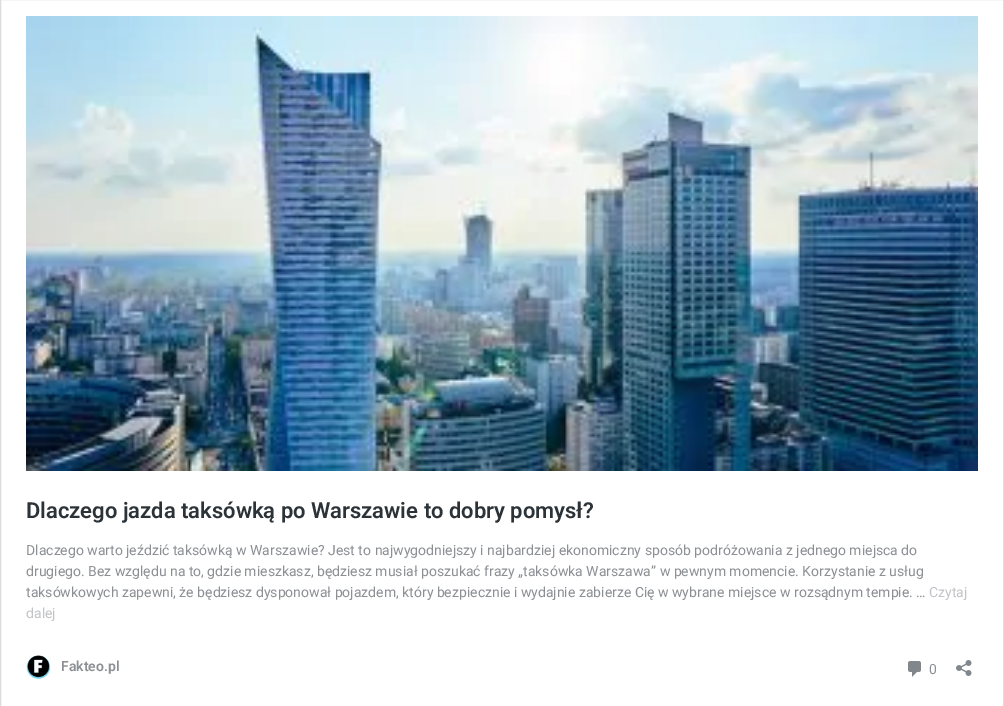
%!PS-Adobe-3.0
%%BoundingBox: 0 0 1004 706
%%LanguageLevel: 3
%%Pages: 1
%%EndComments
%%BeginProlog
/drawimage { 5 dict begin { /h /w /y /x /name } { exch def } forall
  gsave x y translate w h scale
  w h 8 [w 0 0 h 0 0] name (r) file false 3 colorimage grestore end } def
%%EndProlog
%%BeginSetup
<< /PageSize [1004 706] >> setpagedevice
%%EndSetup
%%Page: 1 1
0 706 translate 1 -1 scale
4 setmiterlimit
1 setgray
0 0 1004 706 rectfill
0.863 0.863 0.871 setrgbcolor
0.5 -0.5 1003 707 rectstroke
(images/1.raw) 26 16 952 455 drawimage
(images/2.raw) 26 655 25 24 drawimage
(images/3.raw) 908 661 13 16 drawimage
(images/4.raw) 956 660 16 16 drawimage
/Roboto-SemiBold [22 0 0 -22 0 0] selectfont
0.173 0.2 0.22 setrgbcolor
26 518 moveto (Dlaczego jazda taksówką po Warszawie to dobry pomysł?) show
/Roboto-Regular [14 0 0 -14 0 0] selectfont
0.549 0.561 0.58 setrgbcolor
26 555 moveto (Dlaczego warto jeździć taksówką w Warszawie? Jest to najwygodniejszy i najbardziej ekonomiczny sposób podróżowania z jednego miejsca do) show
26 576 moveto (drugiego. Bez względu na to, gdzie mieszkasz, będziesz musiał poszukać frazy „taksówka Warszawa” w pewnym momencie. Korzystanie z usług) show
26 597 moveto (taksówkowych zapewni, że będziesz dysponował pojazdem, który bezpiecznie i wydajnie zabierze Cię w wybrane miejsce w rozsądnym tempie. …) show
0.765 0.769 0.78 setrgbcolor
929 597 moveto (Czytaj) show
26 618 moveto (dalej) show
/Roboto-SemiBold [14 0 0 -14 0 0] selectfont
0.549 0.561 0.58 setrgbcolor
61 671 moveto (Fakteo.pl) show
/Roboto-Regular [14 0 0 -14 0 0] selectfont
929 674 moveto (0) show
showpage
%%EOF
